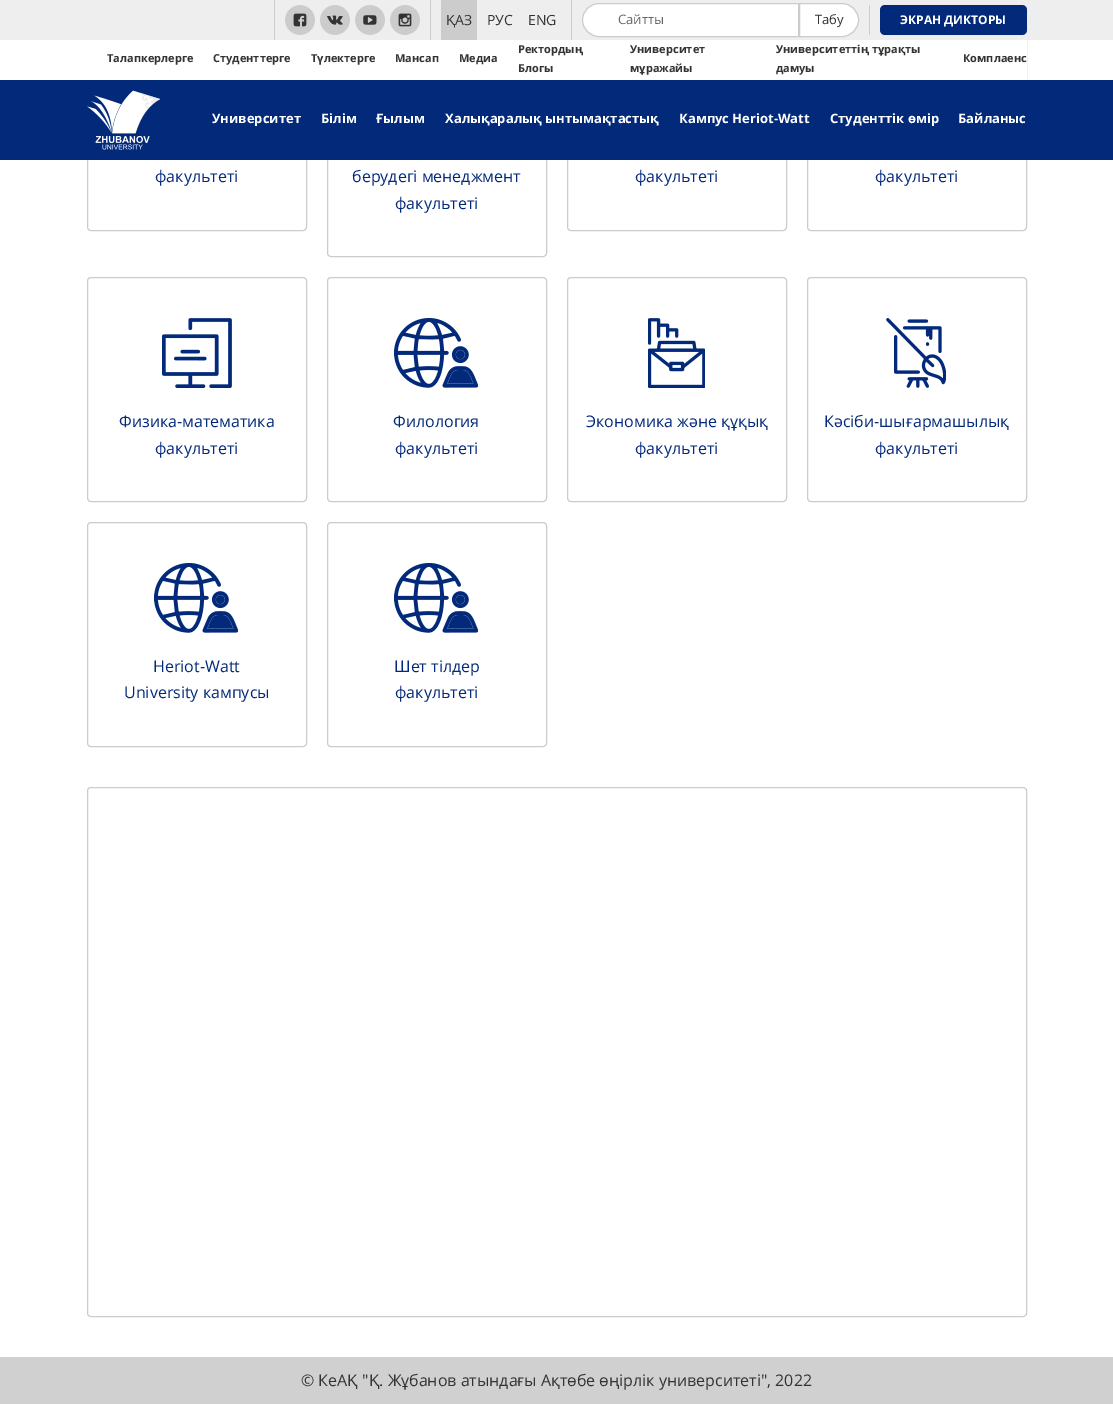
%!PS-Adobe-3.0
%%BoundingBox: 0 0 1113 1404
%%LanguageLevel: 3
%%Pages: 1
%%EndComments
%%BeginProlog
/rrect { 5 dict begin { /r /h /w /y /x } { exch def } forall
  x r add y moveto x w add y 2 copy h add r arct x w add y h add x 1 index r arct
  x y h add x y r arct x y 2 copy exch w add exch r arct closepath end } def
/drawimage { 5 dict begin { /h /w /y /x /name } { exch def } forall
  gsave x y translate w h scale
  w h 8 [w 0 0 h 0 0] name (r) file false 3 colorimage grestore end } def
%%EndProlog
%%BeginSetup
<< /PageSize [1113 1404] >> setpagedevice
%%EndSetup
%%Page: 1 1
0 1404 translate 1 -1 scale
4 setmiterlimit
1 setgray
0 0 1113 1404 rectfill
0.8 setgray
87.5 6.5 219 224 3.5 rrect stroke
327.5 6.5 219 250 3.5 rrect stroke
567.5 6.5 219 224 3.5 rrect stroke
807.5 6.5 219 224 3.5 rrect stroke
0.933 setgray
0 0 1113 40 rectfill
0.8 setgray
274 0 1 40 rectfill
430 0 1 40 rectfill
(images/1.raw) 285 5 30 30 drawimage
(images/2.raw) 320 5 30 30 drawimage
(images/3.raw) 355 5 30 30 drawimage
(images/4.raw) 390 5 30 30 drawimage
571 0 1 40 rectfill
441 0 36 40 rectfill
1 setgray
newpath 599 3.5 moveto 798.5 3.5 lineto 798.5 36.5 lineto 599 36.5 lineto 590 36.5 582.5 29 582.5 20 curveto 582.5 11 590 3.5 599 3.5 curveto closepath gsave fill grestore
0.8 setgray
stroke
1 setgray
newpath 799.5 3.5 moveto 842 3.5 lineto 851 3.5 858.5 11 858.5 20 curveto 858.5 29 851 36.5 842 36.5 curveto 799.5 36.5 lineto closepath gsave fill grestore
0.8 setgray
stroke
869 5 1 30 rectfill
0.012 0.165 0.478 setrgbcolor
880 5 147 30 5 rrect fill
1 setgray
87 40 940 40 rectfill
0.012 0.165 0.478 setrgbcolor
0 80 1113 80 rectfill
(images/5.raw) 87 90 73 60 drawimage
0.8 setgray
87.5 277.5 219 224 3.5 rrect stroke
(images/6.raw) 162 318 70 70 drawimage
327.5 277.5 219 224 3.5 rrect stroke
(images/7.raw) 394 318 84 70 drawimage
567.5 277.5 219 224 3.5 rrect stroke
(images/8.raw) 648 318 57 70 drawimage
807.5 277.5 219 224 3.5 rrect stroke
(images/9.raw) 886 318 60 70 drawimage
87.5 522.5 219 224 3.5 rrect stroke
(images/7.raw) 154 563 84 70 drawimage
327.5 522.5 219 224 3.5 rrect stroke
(images/7.raw) 394 563 84 70 drawimage
87.5 787.5 939 529 3.5 rrect stroke
0.816 setgray
0 1357 1113 47 rectfill
/OpenSans-Regular [14 0 0 -14 0 0] selectfont
0.2 setgray
446 25 moveto (ҚАЗ) show
487 25 moveto (РУС) show
528 25 moveto (ENG) show
/OpenSans-Regular [13 0 0 -13 0 0] selectfont
0.4 setgray
618 24 moveto (Сайтты) show
0.2 setgray
815 24 moveto (Табу) show
/OpenSans-Bold [12 0 0 -12 0 0] selectfont
1 setgray
900 24 moveto (ЭКРАН ДИКТОРЫ) show
/OpenSans-Bold [11 0 0 -11 0 0] selectfont
0.2 setgray
107 62 moveto (Талапкерлерге) show
213 62 moveto (Студенттерге) show
311 62 moveto (Түлектерге) show
395 62 moveto (Мансап) show
459 62 moveto (Медиа) show
518 53 moveto (Ректордың) show
518 72 moveto (Блогы) show
630 53 moveto (Университет) show
630 72 moveto (мұражайы) show
776 53 moveto (Университеттің тұрақты) show
776 72 moveto (дамуы) show
963 62 moveto (Комплаенс) show
/OpenSans-Bold [13 0 0 -13 0 0] selectfont
1 setgray
212 123 moveto (Университет) show
321 123 moveto (Білім) show
376 123 moveto (Ғылым) show
445 123 moveto (Халықаралық ынтымақтастық) show
679 123 moveto (Кампус Heriot-Watt) show
830 123 moveto (Студенттік өмір) show
958 123 moveto (Байланыс) show
/OpenSans-Regular [16 0 0 -16 0 0] selectfont
0.012 0.165 0.478 setrgbcolor
155 182 moveto (факультеті) show
352 182 moveto (берудегі менеджмент) show
395 209 moveto (факультеті) show
635 182 moveto (факультеті) show
875 182 moveto (факультеті) show
119 427 moveto (Физика-математика) show
155 454 moveto (факультеті) show
393 427 moveto (Филология) show
395 454 moveto (факультеті) show
586 427 moveto (Экономика және құқық) show
635 454 moveto (факультеті) show
824 427 moveto (Кәсіби-шығармашылық) show
875 454 moveto (факультеті) show
153 672 moveto (Heriot-Watt) show
124 698 moveto (University кампусы) show
394 672 moveto (Шет тілдер) show
395 698 moveto (факультеті) show
0.2 setgray
301 1386 moveto (© КеАҚ "Қ. Жұбанов атындағы Ақтөбе өңірлік университеті", 2022) show
showpage
%%EOF
